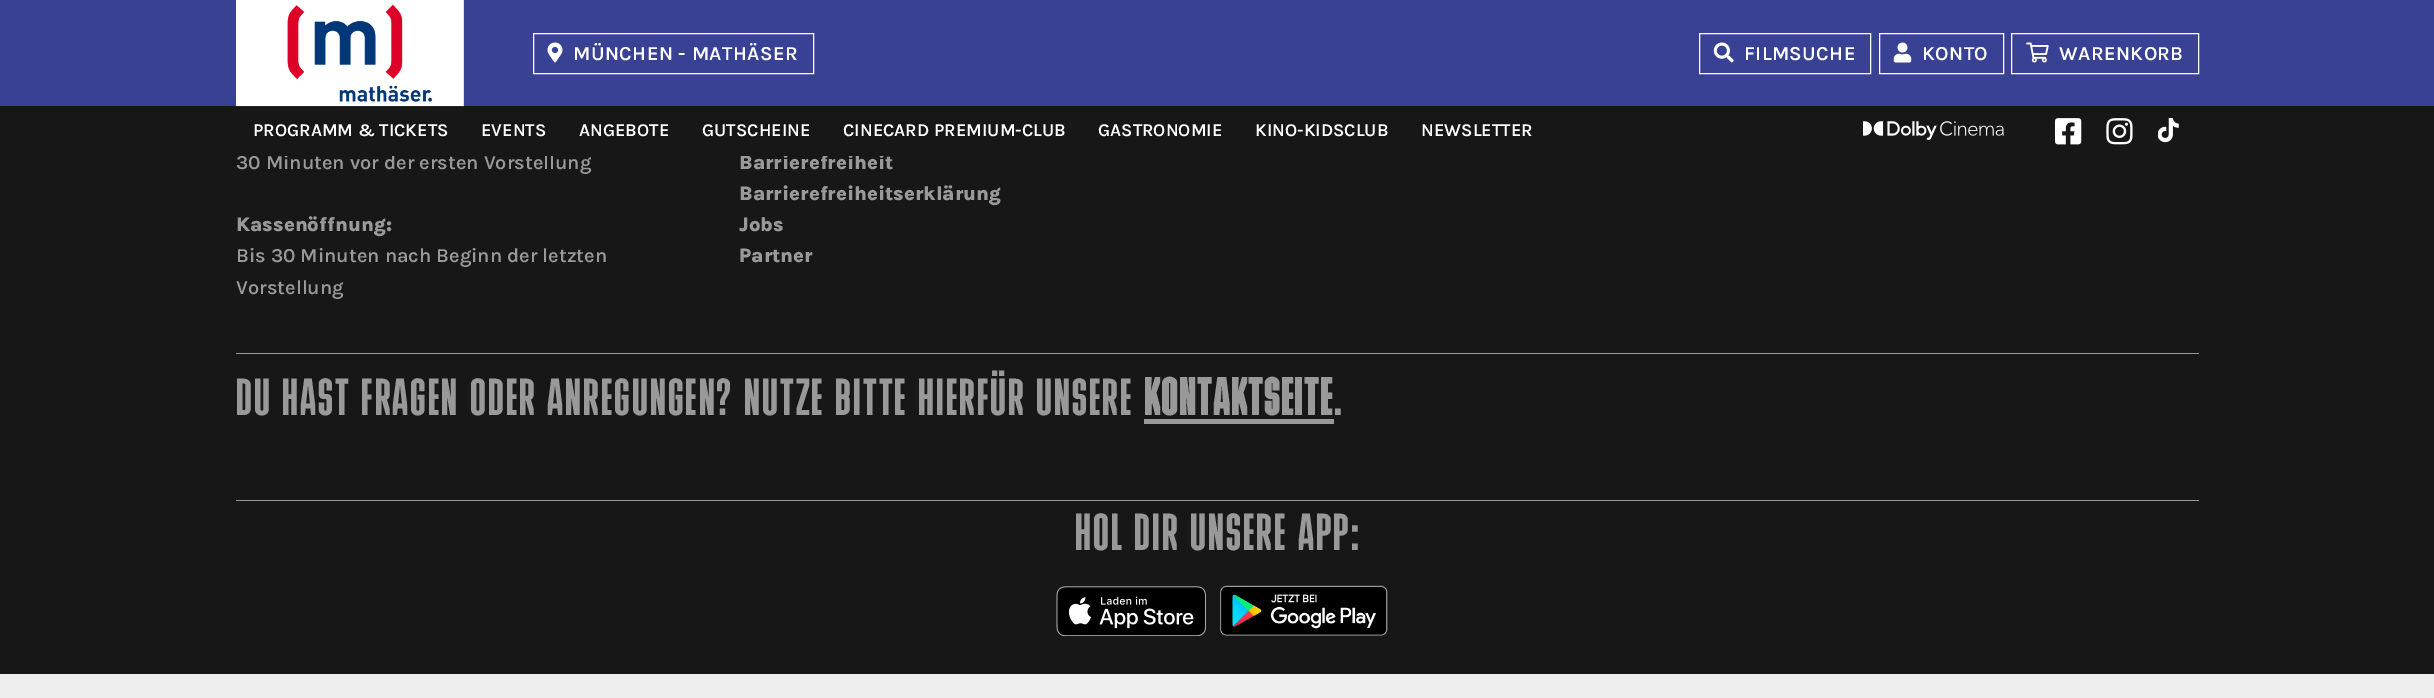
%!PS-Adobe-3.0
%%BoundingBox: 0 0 2434 698
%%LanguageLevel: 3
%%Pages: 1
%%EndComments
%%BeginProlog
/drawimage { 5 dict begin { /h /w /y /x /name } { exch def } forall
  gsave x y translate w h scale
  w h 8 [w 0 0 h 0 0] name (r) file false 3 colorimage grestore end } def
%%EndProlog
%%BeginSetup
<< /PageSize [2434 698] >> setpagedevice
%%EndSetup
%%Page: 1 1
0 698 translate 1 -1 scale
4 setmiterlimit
0.933 setgray
0 0 2434 698 rectfill
0.22 0.255 0.58 setrgbcolor
0 0 2434 106 rectfill
1 setgray
533.5 33.5 280 40 rectstroke
(images/2.raw) 547 42 16 21 drawimage
1699.5 33.5 171 40 rectstroke
(images/3.raw) 1713 42 21 21 drawimage
1879.5 33.5 124 40 rectstroke
(images/4.raw) 1893 42 19 21 drawimage
2011.5 33.5 187 40 rectstroke
(images/5.raw) 2026 42 23 21 drawimage
0.09 setgray
0 156 2434 518 rectfill
0.6 setgray
236 353 1963 1 rectfill
1144 419 190 5 rectfill
236 500 1963 1 rectfill
(images/10.raw) 1056 586 150 50 drawimage
(images/11.raw) 1220 585 168 51 drawimage
/Karla-SemiBold [20 0 0 -20 0 0] selectfont
1 setgray
573 60 moveto 0.4 0 (MÜNCHEN - MATHÄSER) ashow
1744 60 moveto 0.4 0 (FILMSUCHE) ashow
1922 60 moveto 0.4 0 (KONTO) ashow
2059 60 moveto 0.4 0 (WARENKORB) ashow
0.6 setgray
236 169 moveto (30 Minuten vor der ersten Vorstellung) show
/Karla-ExtraBold [20 0 0 -20 0 0] selectfont
236 231 moveto (Kassenöffnung:) show
/Karla-SemiBold [20 0 0 -20 0 0] selectfont
236 262 moveto (Bis 30 Minuten nach Beginn der letzten) show
236 294 moveto (Vorstellung) show
/Karla-ExtraBold [20 0 0 -20 0 0] selectfont
739 169 moveto (Barrierefreiheit) show
0.09 setgray
0 106 2434 50 rectfill
(images/9.raw) 2158 118 21 25 drawimage
(images/6.raw) 1863 121 141 19 drawimage
(images/1.raw) 236 0 228 107 drawimage
(images/8.raw) 2106 118 27 27 drawimage
(images/7.raw) 2055 118 27 27 drawimage
/Karla-SemiBold [18.1 0 0 -18.1 0 0] selectfont
1 setgray
1421 136 moveto (NEWSLETTER) show
1255 136 moveto (KINO-KIDSCLUB) show
1098 136 moveto (GASTRONOMIE) show
843 136 moveto (CINECARD PREMIUM-CLUB) show
702 136 moveto (GUTSCHEINE) show
579 136 moveto (ANGEBOTE) show
481 136 moveto (EVENTS) show
253 136 moveto (PROGRAMM & TICKETS) show
/Karla-ExtraBold [20 0 0 -20 0 0] selectfont
0.6 setgray
739 200 moveto (Barrierefreiheitserklärung) show
739 231 moveto (Jobs) show
739 262 moveto (Partner) show
/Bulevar-Regular [52 0 0 -52 0 0] selectfont
236 415 moveto 2.08 0 (DU HAST FRAGEN ODER ANREGUNGEN? NUTZE BITTE HIERFÜR UNSERE) ashow
/Bulevar-Bold [52 0 0 -52 0 0] selectfont
1144 415 moveto 2.08 0 (KONTAKTSEITE) ashow
/Bulevar-Regular [52 0 0 -52 0 0] selectfont
1334 415 moveto 2.08 0 (.) ashow
1075 550 moveto 2.08 0 (HOL DIR UNSERE APP:) ashow
showpage
%%EOF
